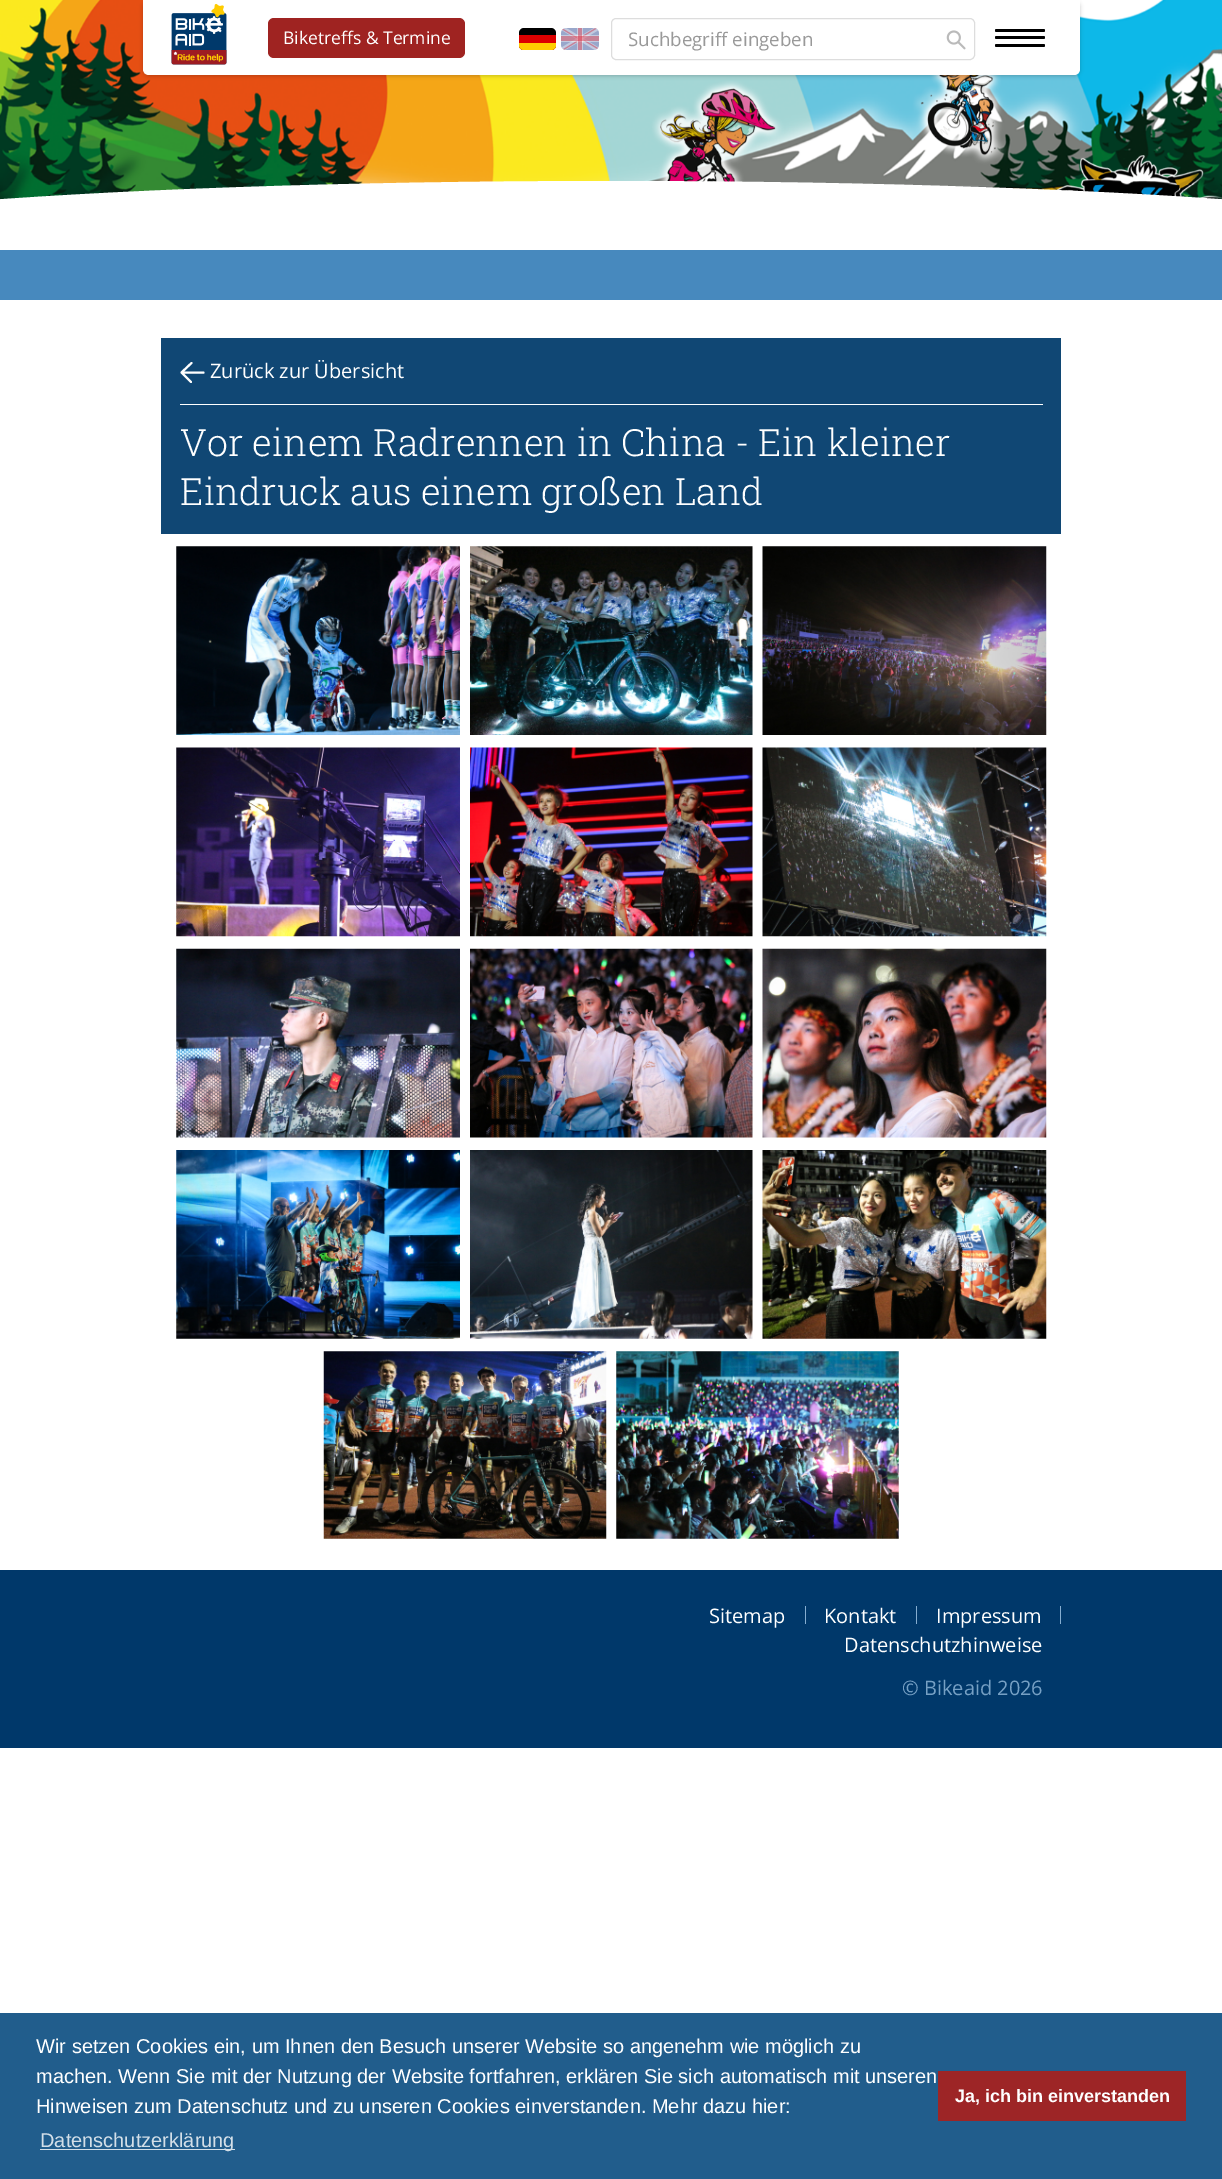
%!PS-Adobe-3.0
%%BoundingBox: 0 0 1222 2179
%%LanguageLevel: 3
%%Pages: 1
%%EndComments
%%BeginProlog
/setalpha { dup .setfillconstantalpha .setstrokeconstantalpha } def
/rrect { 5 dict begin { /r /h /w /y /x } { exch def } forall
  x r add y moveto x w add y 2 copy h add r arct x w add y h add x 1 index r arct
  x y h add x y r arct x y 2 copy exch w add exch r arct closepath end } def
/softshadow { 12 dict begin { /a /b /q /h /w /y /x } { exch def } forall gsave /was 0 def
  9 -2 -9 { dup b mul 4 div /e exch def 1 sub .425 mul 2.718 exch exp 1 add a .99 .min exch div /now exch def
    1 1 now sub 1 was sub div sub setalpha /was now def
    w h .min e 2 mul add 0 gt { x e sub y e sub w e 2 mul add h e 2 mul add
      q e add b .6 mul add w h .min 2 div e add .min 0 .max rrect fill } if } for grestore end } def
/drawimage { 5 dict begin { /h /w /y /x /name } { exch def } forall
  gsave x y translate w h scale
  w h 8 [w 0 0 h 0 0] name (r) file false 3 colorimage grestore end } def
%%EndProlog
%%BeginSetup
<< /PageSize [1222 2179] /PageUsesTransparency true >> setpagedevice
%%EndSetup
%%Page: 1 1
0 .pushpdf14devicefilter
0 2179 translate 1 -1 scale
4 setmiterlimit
1 setgray
0 0 1222 2179 rectfill
0.278 0.537 0.745 setrgbcolor
0 250 1222 50 rectfill
(images/1.raw) 0 0 1222 200 drawimage
gsave
0 174 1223 76 rectclip
1 setgray
newpath 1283 204 moveto 1119 190 879 181 611 181 curveto 343 181 103 190 -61 204 curveto -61 251 lineto 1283 251 lineto closepath fill
grestore
0 setgray
143 1 937 75 6 2 0.2 softshadow
1 setgray
newpath 143 0 moveto 1080 0 lineto 1080 69 lineto 1080 72.5 1077.5 75 1074 75 curveto 149 75 lineto 145.5 75 143 72.5 143 69 curveto closepath fill
(images/2.raw) 171 3 56 62 drawimage
0 setgray
995 29 50 3 1.5 rrect fill
995 36 50 3 1.5 rrect fill
995 44 50 3 1.5 rrect fill
0.624 0.137 0.129 setrgbcolor
268 18 197 40 6 rrect fill
0 setgray
519 28 37 22 5 rrect fill
(images/3.raw) 561 28 38 22 drawimage
0.867 0 0 setrgbcolor
newpath 519 35 moveto 556 35 lineto 556 45 lineto 556 48 554 50 551 50 curveto 524 50 lineto 521 50 519 48 519 45 curveto closepath fill
1 0.808 0 setrgbcolor
newpath 519 43 moveto 556 43 lineto 556 45 lineto 556 48 554 50 551 50 curveto 524 50 lineto 521 50 519 48 519 45 curveto closepath fill
0.867 setgray
611.5 18.5 363 41 4.5 rrect stroke
(images/4.raw) 946 30 20 20 drawimage
0.063 0.278 0.455 setrgbcolor
161 338 900 196 rectfill
1 setgray
180 404 863 1 rectfill
2 setlinewidth
1 setlinecap
1 setlinejoin
newpath 203.5 372.5 moveto 182 372.5 lineto 191 382 moveto 181.5 372.5 lineto 191.5 363 lineto stroke
(images/5.raw) 176 546 284 189 drawimage
(images/6.raw) 470 546 283 189 drawimage
(images/7.raw) 762 546 285 189 drawimage
(images/8.raw) 176 747 284 190 drawimage
(images/9.raw) 470 747 283 190 drawimage
(images/10.raw) 762 747 285 190 drawimage
(images/11.raw) 176 948 284 190 drawimage
(images/12.raw) 470 948 283 190 drawimage
(images/13.raw) 762 948 285 190 drawimage
(images/14.raw) 176 1150 284 189 drawimage
(images/15.raw) 470 1150 283 189 drawimage
(images/16.raw) 762 1150 285 189 drawimage
(images/17.raw) 323 1351 284 188 drawimage
(images/18.raw) 616 1351 283 188 drawimage
0 0.22 0.416 setrgbcolor
0 1570 1222 178 rectfill
0.522 0.678 0.816 setrgbcolor
805 1606 1 18 rectfill
916 1606 1 18 rectfill
1060 1606 1 18 rectfill
0.129 0.365 0.549 setrgbcolor
0 2013 1222 166 rectfill
0.827 0.875 0.91 setrgbcolor
40 2149 195 1 rectfill
0.616 0.145 0.149 setrgbcolor
938 2071 248 50 rectfill
/OpenSans-Regular [17.5 0 0 -17.5 0 0] selectfont
1 setgray
283 44 moveto (Biketreffs & Termine) show
/OpenSans-Regular [18.75 0 0 -18.75 0 0] selectfont
0.6 setgray
628 46 moveto (Suchbegriff eingeben) show
/OpenSans-Regular [20 0 0 -20 0 0] selectfont
1 setgray
210 378 moveto (Zurück zur Übersicht) show
/RobotoSlab-Light [37.5 0 0 -37.5 0 0] selectfont
180 456 moveto (Vor einem Radrennen in China - Ein kleiner) show
180 505 moveto (Eindruck aus einem großen Land) show
/OpenSans-Regular [20 0 0 -20 0 0] selectfont
709 1623 moveto (Sitemap) show
824 1623 moveto (Kontakt) show
936 1623 moveto (Impressum) show
844 1652 moveto (Datenschutzhinweise) show
0.463 0.627 0.769 setrgbcolor
902 1695 moveto (© Bikeaid 2026) show
/LiberationSans-Regular [20 0 0 -20 0 0] selectfont
1 setgray
36 2053 moveto (Wir setzen Cookies ein, um Ihnen den Besuch unserer Website so angenehm wie möglich zu) show
36 2083 moveto (machen. Wenn Sie mit der Nutzung der Website fortfahren, erklären Sie sich automatisch mit unseren) show
36 2113 moveto (Hinweisen zum Datenschutz und zu unseren Cookies einverstanden. Mehr dazu hier:) show
0.827 0.875 0.91 setrgbcolor
40 2147 moveto (Datenschutzerklärung) show
/LiberationSans-Bold [18 0 0 -18 0 0] selectfont
1 setgray
955 2102 moveto (Ja, ich bin einverstanden) show
.poppdf14devicefilter showpage
%%EOF
